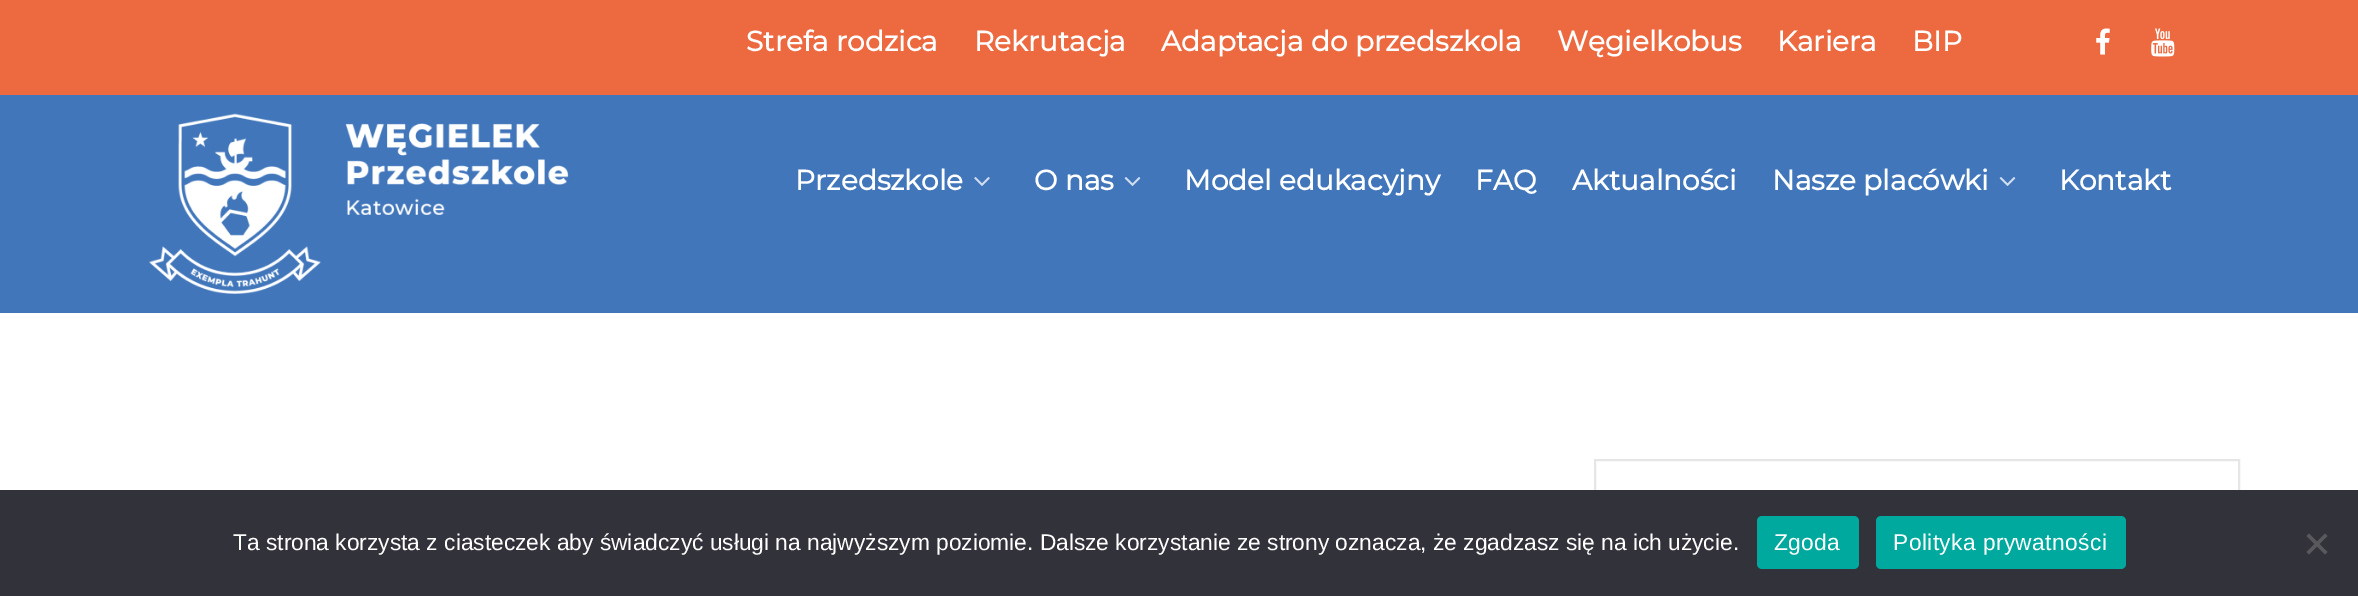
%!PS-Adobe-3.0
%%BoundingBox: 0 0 2358 596
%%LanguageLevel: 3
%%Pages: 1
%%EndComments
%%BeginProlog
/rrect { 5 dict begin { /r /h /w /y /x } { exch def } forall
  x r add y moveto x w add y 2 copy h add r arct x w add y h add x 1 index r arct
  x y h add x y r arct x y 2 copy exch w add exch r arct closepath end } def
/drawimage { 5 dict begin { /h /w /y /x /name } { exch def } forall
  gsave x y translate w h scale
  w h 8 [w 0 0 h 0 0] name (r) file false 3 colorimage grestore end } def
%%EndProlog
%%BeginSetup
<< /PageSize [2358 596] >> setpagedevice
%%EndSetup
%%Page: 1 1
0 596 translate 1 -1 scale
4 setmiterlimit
1 setgray
0 0 2358 596 rectfill
0.929 0.416 0.255 setrgbcolor
0 0 2358 95 rectfill
(images/1.raw) 2096 28 14 27 drawimage
(images/2.raw) 2151 28 24 29 drawimage
0.255 0.463 0.733 setrgbcolor
0 95 2358 218 rectfill
(images/3.raw) 149 113 420 181 drawimage
(images/4.raw) 974 177 16 9 drawimage
(images/5.raw) 1124 177 17 9 drawimage
(images/5.raw) 1999 177 17 9 drawimage
0.902 setgray
2 setlinewidth
1595 460 644 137 rectstroke
0.196 0.196 0.227 setrgbcolor
0 490 2358 106 rectfill
0 0.663 0.616 setrgbcolor
1757 516 102 53 5 rrect fill
1876 516 250 53 5 rrect fill
0.349 0.349 0.365 setrgbcolor
newpath 2325 533.5 moveto 2327.5 536 lineto 2309 554.5 lineto 2306.5 552 lineto closepath fill
newpath 2306.5 536 moveto 2309 533.5 lineto 2327.5 552 lineto 2325 554.5 lineto closepath fill
/Montserrat-Bold [28 0 0 -28 0 0] selectfont
1 setgray
746 51 moveto (Strefa rodzica) show
974 51 moveto (Rekrutacja) show
1161 51 moveto (Adaptacja do przedszkola) show
1557 51 moveto (Węgielkobus) show
1777 51 moveto (Kariera) show
1912 51 moveto (BIP) show
795 190 moveto (Przedszkole) show
1034 190 moveto (O nas) show
1184 190 moveto (Model edukacyjny) show
1475 190 moveto (FAQ) show
1572 190 moveto (Aktualności) show
1772 190 moveto (Nasze placówki) show
2059 190 moveto (Kontakt) show
/LiberationSans-Regular [22.75 0 0 -22.75 0 0] selectfont
233 550 moveto (Ta strona korzysta z ciasteczek aby świadczyć usługi na najwyższym poziomie. Dalsze korzystanie ze strony oznacza, że zgadzasz się na ich użycie.) show
1774 550 moveto 0.4 0 (Zgoda) ashow
1893 550 moveto 0.4 0 (Polityka prywatności) ashow
showpage
%%EOF
